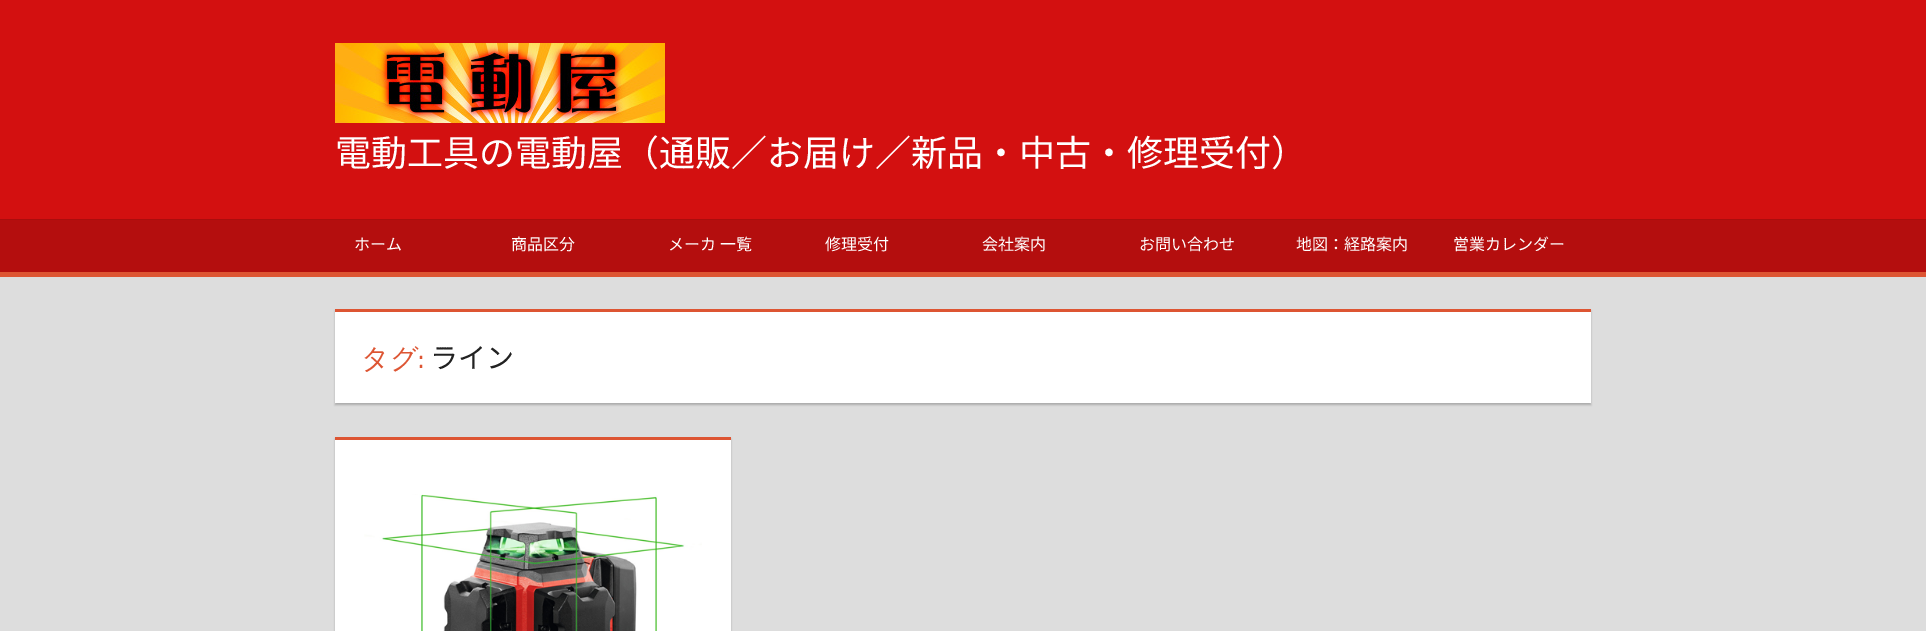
%!PS-Adobe-3.0
%%BoundingBox: 0 0 1926 631
%%LanguageLevel: 3
%%Pages: 1
%%EndComments
%%BeginProlog
/setalpha { dup .setfillconstantalpha .setstrokeconstantalpha } def
/rrect { 5 dict begin { /r /h /w /y /x } { exch def } forall
  x r add y moveto x w add y 2 copy h add r arct x w add y h add x 1 index r arct
  x y h add x y r arct x y 2 copy exch w add exch r arct closepath end } def
/softshadow { 12 dict begin { /a /b /q /h /w /y /x } { exch def } forall gsave /was 0 def
  9 -2 -9 { dup b mul 4 div /e exch def 1 sub .425 mul 2.718 exch exp 1 add a .99 .min exch div /now exch def
    1 1 now sub 1 was sub div sub setalpha /was now def
    w h .min e 2 mul add 0 gt { x e sub y e sub w e 2 mul add h e 2 mul add
      q e add b .6 mul add w h .min 2 div e add .min 0 .max rrect fill } if } for grestore end } def
/drawimage { 5 dict begin { /h /w /y /x /name } { exch def } forall
  gsave x y translate w h scale
  w h 8 [w 0 0 h 0 0] name (r) file false 3 colorimage grestore end } def
%%EndProlog
%%BeginSetup
<< /PageSize [1926 631] /PageUsesTransparency true >> setpagedevice
%%EndSetup
%%Page: 1 1
0 .pushpdf14devicefilter
0 631 translate 1 -1 scale
4 setmiterlimit
0.867 setgray
0 0 1926 631 rectfill
0.827 0.063 0.063 setrgbcolor
0 0 1926 219 rectfill
(images/1.raw) 335 43 330 80 drawimage
0.706 0.055 0.055 setrgbcolor
0 220 1926 52 rectfill
0.671 0.051 0.051 setrgbcolor
0 219 1926 1 rectfill
0.867 0.333 0.2 setrgbcolor
0 272 1926 5 rectfill
0.667 setgray
335 311 1256 94 0 1 1 softshadow
1 setgray
335 312 1256 91 rectfill
0.867 0.333 0.2 setrgbcolor
335 309 1256 3 rectfill
0.667 setgray
335 439 396 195 0 1 1 softshadow
1 setgray
335 440 396 191 rectfill
0.867 0.333 0.2 setrgbcolor
335 437 396 3 rectfill
(images/2.raw) 364 494 338 137 drawimage
/NotoSansJP-Thin [36 0 0 -36 0 0] selectfont
1 setgray
335 166 moveto (電動工具の電動屋（通販／お届け／新品・中古・修理受付）) show
/NotoSansJP-Thin [16 0 0 -16 0 0] selectfont
354 250 moveto (ホーム) show
511 250 moveto (商品区分) show
668 250 moveto (メーカ 一覧) show
825 250 moveto (修理受付) show
982 250 moveto (会社案内) show
1139 250 moveto (お問い合わせ) show
1296 250 moveto (地図：経路案内) show
1453 250 moveto (営業カレンダー) show
/WenQuanYiZenHei-Medium [28 0 0 -28 0 0] selectfont
0.867 0.333 0.2 setrgbcolor
361 368 moveto (タグ) show
/TitilliumWeb-Regular [28 0 0 -28 0 0] selectfont
418 368 moveto (:) show
/NotoSansJP-Thin [28 0 0 -28 0 0] selectfont
0.133 setgray
430 368 moveto (ライン) show
.poppdf14devicefilter showpage
%%EOF
